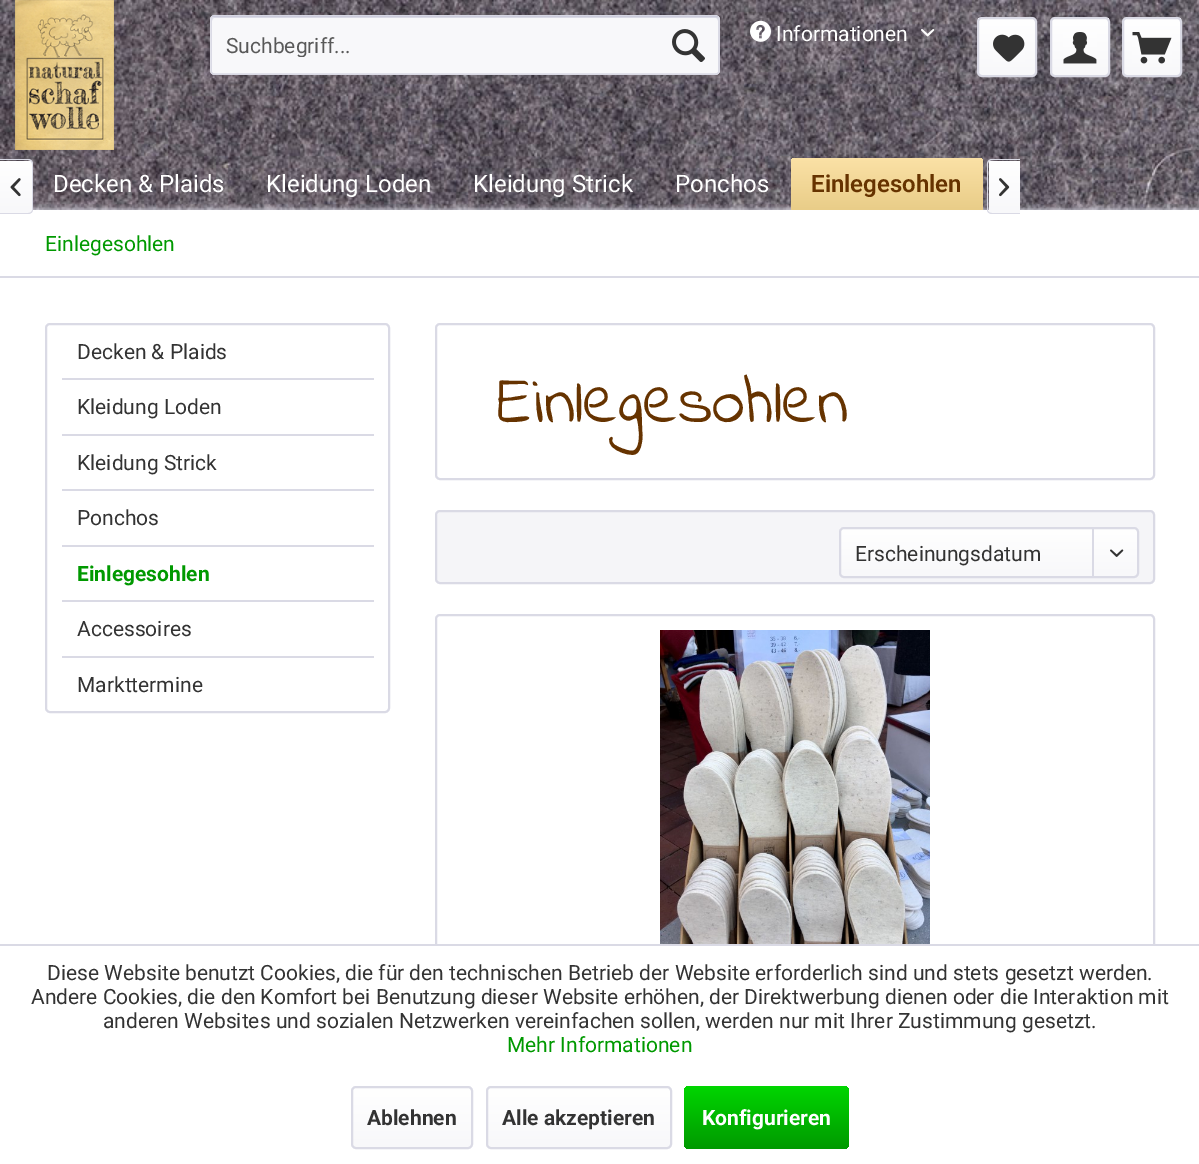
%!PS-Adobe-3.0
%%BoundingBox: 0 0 1199 1164
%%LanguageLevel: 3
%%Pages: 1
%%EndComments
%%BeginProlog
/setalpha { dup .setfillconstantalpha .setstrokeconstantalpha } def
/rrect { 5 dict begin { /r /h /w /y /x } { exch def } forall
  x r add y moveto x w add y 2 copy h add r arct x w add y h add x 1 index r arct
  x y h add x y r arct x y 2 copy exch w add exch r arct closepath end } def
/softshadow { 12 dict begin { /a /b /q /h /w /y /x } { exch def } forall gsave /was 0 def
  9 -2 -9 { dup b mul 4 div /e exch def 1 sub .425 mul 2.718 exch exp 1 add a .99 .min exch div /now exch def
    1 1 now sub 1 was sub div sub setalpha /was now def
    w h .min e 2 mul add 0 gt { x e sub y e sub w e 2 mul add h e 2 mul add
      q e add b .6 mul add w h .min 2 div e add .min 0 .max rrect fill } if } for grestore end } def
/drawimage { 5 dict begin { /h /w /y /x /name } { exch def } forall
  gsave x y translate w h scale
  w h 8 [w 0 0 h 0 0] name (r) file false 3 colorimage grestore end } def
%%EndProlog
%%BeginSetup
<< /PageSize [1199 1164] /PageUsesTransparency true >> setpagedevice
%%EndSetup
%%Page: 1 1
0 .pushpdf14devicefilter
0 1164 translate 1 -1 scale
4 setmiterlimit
1 setgray
0 0 1199 1164 rectfill
(images/1.raw) 0 0 1199 210 drawimage
(images/2.raw) 15 0 99 150 drawimage
(images/3.raw) 750 20 21 22 drawimage
(images/4.raw) 921 29 14 8 drawimage
gsave 978 18 57 57 3 rrect clip newpath
<< /ShadingType 2 /ColorSpace /DeviceRGB /Coords [1007 18 1007 75] /Extend [true true] /Function << /FunctionType 2 /Domain [0 1] /C0 [1 1 1] /C1 [0.973 0.973 0.98] /N 1 >> >> shfill grestore
0.855 0.855 0.898 setrgbcolor
2 setlinewidth
978 18 58 58 4 rrect stroke
(images/5.raw) 993 34 32 28 drawimage
gsave 1052 18 57 57 3 rrect clip newpath
<< /ShadingType 2 /ColorSpace /DeviceRGB /Coords [1080 18 1080 75] /Extend [true true] /Function << /FunctionType 2 /Domain [0 1] /C0 [1 1 1] /C1 [0.973 0.973 0.98] /N 1 >> >> shfill grestore
1051 18 58 58 4 rrect stroke
(images/6.raw) 1063 32 34 32 drawimage
gsave 1124 18 57 57 3 rrect clip newpath
<< /ShadingType 2 /ColorSpace /DeviceRGB /Coords [1152 18 1152 75] /Extend [true true] /Function << /FunctionType 2 /Domain [0 1] /C0 [1 1 1] /C1 [0.973 0.973 0.98] /N 1 >> >> shfill grestore
1123 18 58 58 4 rrect stroke
(images/7.raw) 1132 32 40 32 drawimage
0.973 0.973 0.98 setrgbcolor
210 15 510 60 5 rrect fill
0.855 0.855 0.898 setrgbcolor
newpath 214 18 moveto 716 18 lineto 717 18 718 19 718 21 curveto 718 73 lineto 719 73 719 72 719 71 curveto 719 20 lineto 719 18 718 17 716 17 curveto 215 17 lineto 213 17 212 18 212 20 curveto 212 21 lineto 212 19 213 18 214 18 curveto closepath fill
0.796 0.796 0.859 setrgbcolor
1.5 setlinewidth
newpath 212 17 moveto 213 16 lineto 381.5 16 lineto 715.5 16 lineto 718 17 lineto stroke
0.855 0.855 0.898 setrgbcolor
newpath 718 17 moveto 719 17.5 719 18.5 719 19.5 curveto 719 70.5 lineto 719 71.5 719 72.5 718 73 curveto 717.5 74 716.5 74 715.5 74 curveto 214.5 74 lineto 213.5 74 212.5 74 212 73 curveto 211 72.5 211 71.5 211 70.5 curveto 211 19.5 lineto 211 18.5 211 17.5 212 17 curveto stroke
(images/8.raw) 672 29 33 33 drawimage
-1 209 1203 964 0 3 1 softshadow
1 setgray
0 210 1199 734 rectfill
gsave newpath 0 161 moveto 29 161 lineto 30.5 161 32 162.5 32 164 curveto 32 210 lineto 32 211.5 30.5 213 29 213 curveto 0 213 lineto closepath clip newpath
<< /ShadingType 2 /ColorSpace /DeviceRGB /Coords [16 161 16 213] /Extend [true true] /Function << /FunctionType 2 /Domain [0 1] /C0 [1 1 1] /C1 [0.973 0.973 0.98] /N 1 >> >> shfill grestore
0.855 0.855 0.898 setrgbcolor
newpath 0 159 moveto 28 159 lineto 31 159 33 161 33 164 curveto 33 210 lineto 33 212 31 214 28 214 curveto 0 214 lineto closepath 0 160 moveto 28 160 lineto 30 160 32 162 32 164 curveto 32 210 lineto 32 212 30 213 28 213 curveto 0 213 lineto closepath eofill
(images/9.raw) 10 178 11 19 drawimage
gsave newpath 796 158 moveto 978 158 lineto 981 158 983 160 983 163 curveto 983 210 lineto 791 210 lineto 791 163 lineto 791 160 793 158 796 158 curveto closepath clip newpath
<< /ShadingType 2 /ColorSpace /DeviceRGB /Coords [887 158 887 210] /Extend [true true] /Function << /FunctionType 2 /Domain [0 1] /C0 [0.984 0.882 0.651] /C1 [0.914 0.804 0.533] /N 1 >> >> shfill grestore
gsave newpath 992 161 moveto 1020 161 lineto 1020 213 lineto 992 213 lineto 990.5 213 989 211.5 989 210 curveto 989 164 lineto 989 162.5 990.5 161 992 161 curveto closepath clip newpath
<< /ShadingType 2 /ColorSpace /DeviceRGB /Coords [1004 161 1004 213] /Extend [true true] /Function << /FunctionType 2 /Domain [0 1] /C0 [1 1 1] /C1 [0.973 0.973 0.98] /N 1 >> >> shfill grestore
newpath 992 159 moveto 1020 159 lineto 1020 214 lineto 992 214 lineto 989 214 987 212 987 210 curveto 987 164 lineto 987 161 989 159 992 159 curveto closepath 992 160 moveto 1020 160 lineto 1020 213 lineto 992 213 lineto 990 213 988 212 988 210 curveto 988 164 lineto 988 162 990 160 992 160 curveto closepath eofill
(images/10.raw) 999 178 11 19 drawimage
0 276 1199 2 rectfill
2 setlinewidth
46 324 343 388 4 rrect stroke
62 378 312 2 rectfill
62 434 312 2 rectfill
62 489 312 2 rectfill
62 545 312 2 rectfill
62 600 312 2 rectfill
62 656 312 2 rectfill
436 324 718 155 4 rrect stroke
0.961 0.961 0.973 setrgbcolor
436 511 718 72 4 rrect gsave fill grestore
0.855 0.855 0.898 setrgbcolor
stroke
gsave 840 528 297 48 3 rrect clip newpath
<< /ShadingType 2 /ColorSpace /DeviceRGB /Coords [989 528 989 576] /Extend [true true] /Function << /FunctionType 2 /Domain [0 1] /C0 [1 1 1] /C1 [0.973 0.973 0.98] /N 1 >> >> shfill grestore
840 528 298 49 4 rrect stroke
1092 528 2 50 rectfill
(images/11.raw) 1110 549 14 8 drawimage
436 615 718 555 4 rrect stroke
(images/12.raw) 660 630 270 314 drawimage
1 setgray
0 946 1199 218 rectfill
0.855 0.855 0.898 setrgbcolor
0 944 1199 2 rectfill
gsave 353 1088 118 60 3 rrect clip newpath
<< /ShadingType 2 /ColorSpace /DeviceRGB /Coords [412 1088 412 1148] /Extend [true true] /Function << /FunctionType 2 /Domain [0 1] /C0 [1 1 1] /C1 [0.973 0.973 0.98] /N 1 >> >> shfill grestore
352 1087 120 61 4 rrect stroke
gsave 488 1088 183 60 3 rrect clip newpath
<< /ShadingType 2 /ColorSpace /DeviceRGB /Coords [579 1088 579 1148] /Extend [true true] /Function << /FunctionType 2 /Domain [0 1] /C0 [1 1 1] /C1 [0.973 0.973 0.98] /N 1 >> >> shfill grestore
487 1087 184 61 4 rrect stroke
gsave 684 1086 165 63 5 rrect clip newpath
<< /ShadingType 2 /ColorSpace /DeviceRGB /Coords [767 1086 767 1149] /Extend [true true] /Function << /FunctionType 2 /Domain [0 1] /C0 [0 0.839 0] /C1 [0 0.6 0] /N 1 >> >> shfill grestore
/Roboto-Regular [21 0 0 -21 0 0] selectfont
1 setgray
776 41 moveto (Informationen) show
gsave
225 33 431 24 rectclip
0.349 setgray
226 53 moveto (Suchbegriff...) show
grestore
/Roboto-Regular [24 0 0 -24 0 0] selectfont
53 192 moveto (Decken & Plaids) show
266 192 moveto (Kleidung Loden) show
473 192 moveto (Kleidung Strick) show
675 192 moveto (Ponchos) show
/Roboto-SemiBold [24 0 0 -24 0 0] selectfont
0.4 0.2 0 setrgbcolor
811 192 moveto (Einlegesohlen) show
/Roboto-Regular [21 0 0 -21 0 0] selectfont
0 0.6 0 setrgbcolor
45 251 moveto (Einlegesohlen) show
0.2 setgray
77 359 moveto (Decken & Plaids) show
77 414 moveto (Kleidung Loden) show
77 470 moveto (Kleidung Strick) show
77 525 moveto (Ponchos) show
/Roboto-Bold [21 0 0 -21 0 0] selectfont
0 0.6 0 setrgbcolor
77 581 moveto (Einlegesohlen) show
/Roboto-Regular [21 0 0 -21 0 0] selectfont
0.2 setgray
77 636 moveto (Accessoires) show
77 692 moveto (Markttermine) show
/IndieFlower-Regular [67.5 0 0 -67.5 0 0] selectfont
0.4 0.2 0 setrgbcolor
497 422 moveto (Einlegesohlen) show
/Roboto-Regular [21 0 0 -21 0 0] selectfont
0.2 setgray
855 561 moveto (Erscheinungsdatum) show
47 980 moveto (Diese Website benutzt Cookies, die für den technischen Betrieb der Website erforderlich sind und stets gesetzt werden.) show
31 1004 moveto (Andere Cookies, die den Komfort bei Benutzung dieser Website erhöhen, der Direktwerbung dienen oder die Interaktion mit) show
103 1028 moveto (anderen Websites und sozialen Netzwerken vereinfachen sollen, werden nur mit Ihrer Zustimmung gesetzt.) show
0 0.6 0 setrgbcolor
507 1052 moveto (Mehr Informationen) show
/Roboto-Bold [21 0 0 -21 0 0] selectfont
0.2 setgray
367 1125 moveto (Ablehnen) show
502 1125 moveto (Alle akzeptieren) show
1 setgray
702 1125 moveto (Konfigurieren) show
.poppdf14devicefilter showpage
%%EOF
